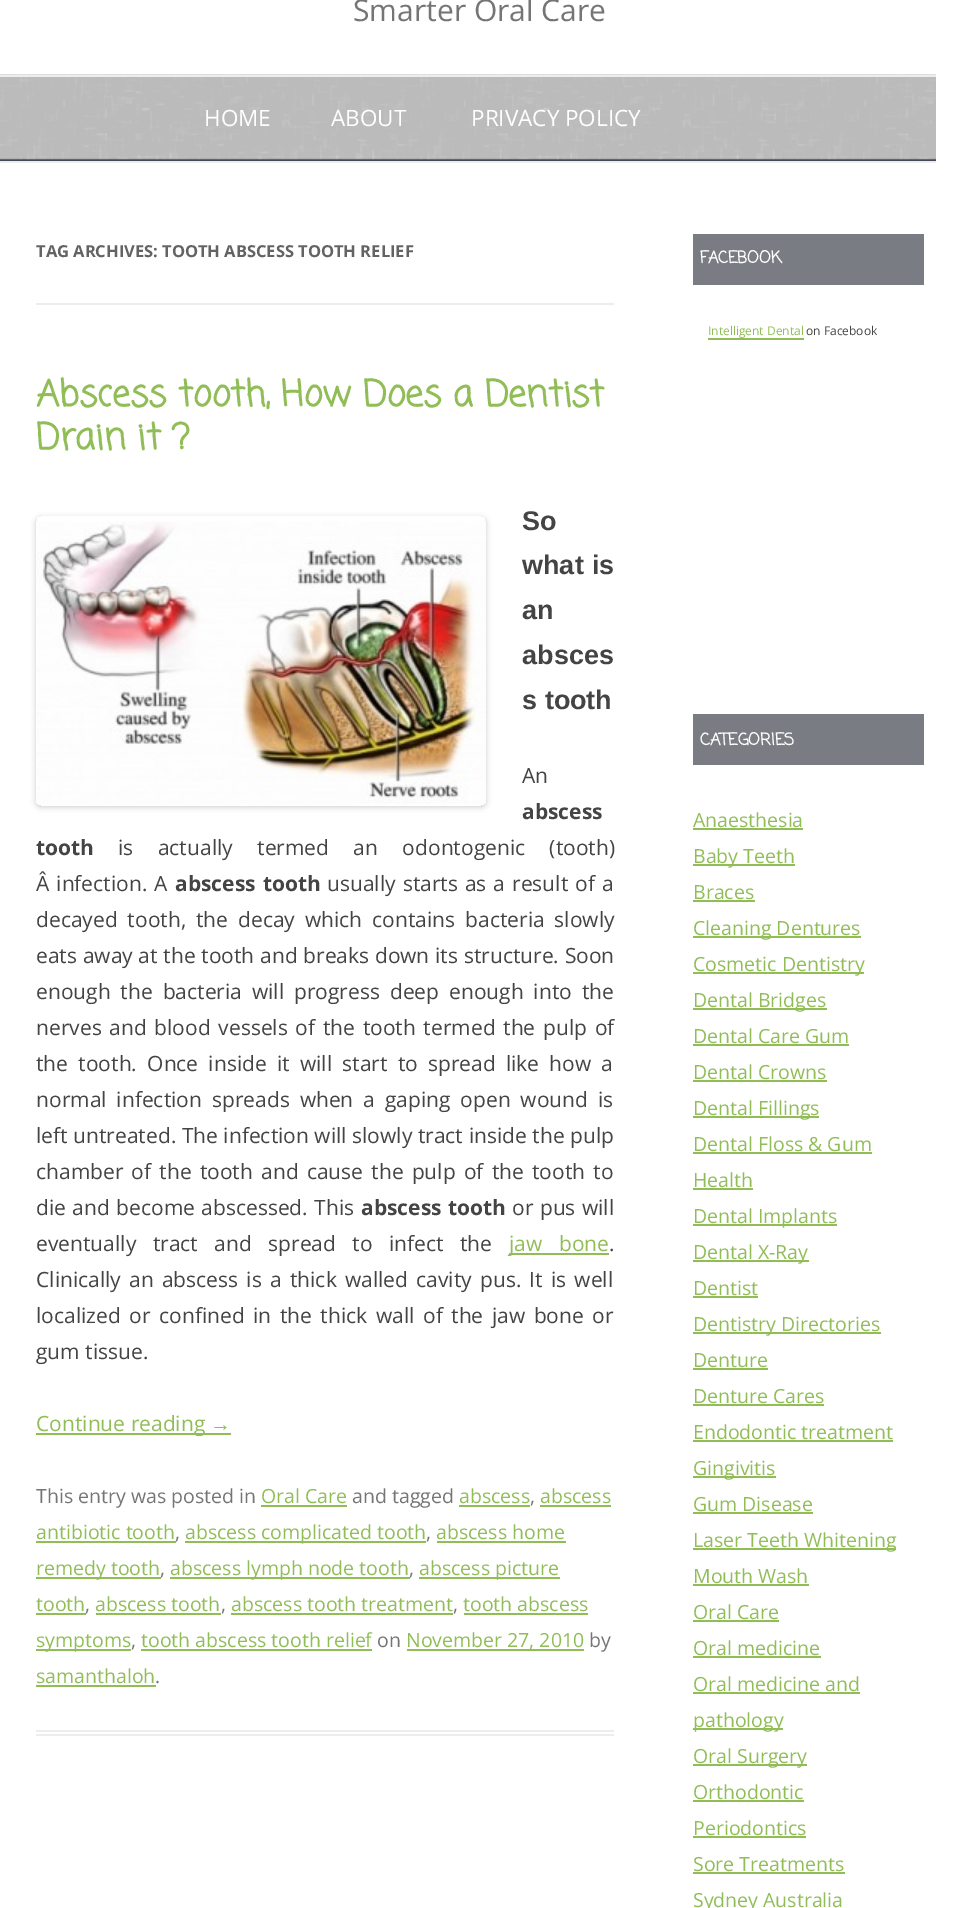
%!PS-Adobe-3.0
%%BoundingBox: 0 0 959 1908
%%LanguageLevel: 3
%%Pages: 1
%%EndComments
%%BeginProlog
/setalpha { dup .setfillconstantalpha .setstrokeconstantalpha } def
/rrect { 5 dict begin { /r /h /w /y /x } { exch def } forall
  x r add y moveto x w add y 2 copy h add r arct x w add y h add x 1 index r arct
  x y h add x y r arct x y 2 copy exch w add exch r arct closepath end } def
/softshadow { 12 dict begin { /a /b /q /h /w /y /x } { exch def } forall gsave /was 0 def
  9 -2 -9 { dup b mul 4 div /e exch def 1 sub .425 mul 2.718 exch exp 1 add a .99 .min exch div /now exch def
    1 1 now sub 1 was sub div sub setalpha /was now def
    w h .min e 2 mul add 0 gt { x e sub y e sub w e 2 mul add h e 2 mul add
      q e add b .6 mul add w h .min 2 div e add .min 0 .max rrect fill } if } for grestore end } def
/drawimage { 5 dict begin { /h /w /y /x /name } { exch def } forall
  gsave x y translate w h scale
  w h 8 [w 0 0 h 0 0] name (r) file false 3 colorimage grestore end } def
%%EndProlog
%%BeginSetup
<< /PageSize [959 1908] /PageUsesTransparency true >> setpagedevice
%%EndSetup
%%Page: 1 1
0 .pushpdf14devicefilter
0 1908 translate 1 -1 scale
4 setmiterlimit
1 setgray
0 0 959 1908 rectfill
(images/1.raw) 0 74 936 87 drawimage
0.929 setgray
0 75 936 2 rectfill
0 161 936 2 rectfill
36 303 578 2 rectfill
36 1730 578 2 rectfill
36 1734 578 2 rectfill
gsave
newpath 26 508 moveto 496 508 lineto 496 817 lineto 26 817 lineto closepath 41 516 moveto 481 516 lineto 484 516 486 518 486 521 curveto 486 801 lineto 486 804 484 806 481 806 curveto 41 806 lineto 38 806 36 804 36 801 curveto 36 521 lineto 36 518 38 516 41 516 curveto closepath eoclip newpath
0 setgray
36 518 450 289 5 3 0.2 softshadow
grestore
(images/2.raw) 36 521 450 283 drawimage
0.565 0.741 0.337 setrgbcolor
509 1253 100 2 rectfill
36 1433 195 2 rectfill
261 1505 86 2 rectfill
459 1505 71 2 rectfill
540 1505 71 2 rectfill
36 1541 140 2 rectfill
185 1541 241 2 rectfill
437 1541 129 2 rectfill
36 1577 125 2 rectfill
170 1577 240 2 rectfill
419 1577 141 2 rectfill
36 1613 50 2 rectfill
96 1613 125 2 rectfill
231 1613 222 2 rectfill
464 1613 124 2 rectfill
36 1649 95 2 rectfill
141 1649 231 2 rectfill
407 1649 177 2 rectfill
36 1685 120 2 rectfill
0.475 0.486 0.51 setrgbcolor
693 234 231 51 rectfill
0.565 0.741 0.337 setrgbcolor
708 338 96 2 rectfill
0.475 0.486 0.51 setrgbcolor
693 714 231 51 rectfill
0.565 0.741 0.337 setrgbcolor
693 828 110 2 rectfill
693 864 102 2 rectfill
693 900 62 2 rectfill
693 936 168 2 rectfill
693 972 171 2 rectfill
693 1008 134 2 rectfill
693 1044 156 2 rectfill
693 1080 134 2 rectfill
693 1116 126 2 rectfill
693 1152 179 2 rectfill
693 1188 60 2 rectfill
693 1224 144 2 rectfill
693 1260 116 2 rectfill
693 1296 65 2 rectfill
693 1332 188 2 rectfill
693 1368 75 2 rectfill
693 1404 131 2 rectfill
693 1440 200 2 rectfill
693 1476 83 2 rectfill
693 1512 120 2 rectfill
693 1548 203 2 rectfill
693 1584 116 2 rectfill
693 1620 86 2 rectfill
693 1656 128 2 rectfill
693 1692 167 2 rectfill
693 1728 90 2 rectfill
693 1764 114 2 rectfill
693 1800 111 2 rectfill
693 1836 113 2 rectfill
693 1872 152 2 rectfill
/OpenSans-Regular [30 0 0 -30 0 0] selectfont
0.459 setgray
353 21 moveto (Smarter Oral Care) show
/OpenSans-Regular [22.5 0 0 -22.5 0 0] selectfont
1 setgray
204 126 moveto (HOME) show
331 126 moveto (ABOUT) show
471 126 moveto (PRIVACY POLICY) show
/OpenSans-Bold [16.5 0 0 -16.5 0 0] selectfont
0.388 setgray
36 257 moveto (TAG ARCHIVES: TOOTH ABSCESS TOOTH RELIEF) show
/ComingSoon-Bold [36 0 0 -36 0 0] selectfont
0.565 0.741 0.337 setrgbcolor
36 406 moveto (Abscess tooth, How Does a Dentist) show
36 449 moveto (Drain it ?) show
/LiberationSans-Bold [27 0 0 -27 0 0] selectfont
0.267 setgray
522 530 moveto (So) show
522 574 moveto 1 0 32 (what is) widthshow
522 619 moveto (an) show
522 664 moveto (absces) show
522 709 moveto (s tooth) show
/OpenSans-Regular [21 0 0 -21 0 0] selectfont
522 783 moveto (An) show
/OpenSans-Bold [21 0 0 -21 0 0] selectfont
522 819 moveto (abscess) show
36 855 moveto (tooth) show
/OpenSans-Regular [21 0 0 -21 0 0] selectfont
118 855 moveto 19 0 32 (is actually termed an odontogenic \(tooth\)) widthshow
36 891 moveto 1.5 0 32 (Â infection. A) widthshow
/OpenSans-Bold [21 0 0 -21 0 0] selectfont
175 891 moveto 2 0 32 (abscess tooth) widthshow
/OpenSans-Regular [21 0 0 -21 0 0] selectfont
327 891 moveto 1.5 0 32 (usually starts as a result of a) widthshow
36 927 moveto 4.5 0 32 (decayed tooth, the decay which contains bacteria slowly) widthshow
36 963 moveto 0.25 0 32 (eats away at the tooth and breaks down its structure. Soon) widthshow
36 999 moveto 4.5 0 32 (enough the bacteria will progress deep enough into the) widthshow
36 1035 moveto 2.25 0 32 (nerves and blood vessels of the tooth termed the pulp of) widthshow
36 1071 moveto 4.75 0 32 (the tooth. Once inside it will start to spread like how a) widthshow
36 1107 moveto 4.5 0 32 (normal infection spreads when a gaping open wound is) widthshow
36 1143 moveto 0.1 0 32 (left untreated. The infection will slowly tract inside the pulp) widthshow
36 1179 moveto 2.75 0 32 (chamber of the tooth and cause the pulp of the tooth to) widthshow
36 1215 moveto 1 0 32 (die and become abscessed. This) widthshow
/OpenSans-Bold [21 0 0 -21 0 0] selectfont
361 1215 moveto 1 0 32 (abscess tooth) widthshow
/OpenSans-Regular [21 0 0 -21 0 0] selectfont
512 1215 moveto 1 0 32 (or pus will) widthshow
36 1251 moveto 11 0 32 (eventually tract and spread to infect the) widthshow
0.565 0.741 0.337 setrgbcolor
509 1251 moveto 11 0 32 (jaw bone) widthshow
0.267 setgray
609 1251 moveto (.) show
36 1287 moveto 2.75 0 32 (Clinically an abscess is a thick walled cavity pus. It is well) widthshow
36 1323 moveto 3.1 0 32 (localized or confined in the thick wall of the jaw bone or) widthshow
36 1359 moveto (gum tissue.) show
0.565 0.741 0.337 setrgbcolor
36 1431 moveto (Continue reading) show
/LiberationSans-Regular [21 0 0 -21 0 0] selectfont
210 1431 moveto (→) show
/OpenSans-Regular [19.5 0 0 -19.5 0 0] selectfont
0.459 setgray
36 1503 moveto (This entry was posted in) show
0.565 0.741 0.337 setrgbcolor
261 1503 moveto (Oral Care) show
0.459 setgray
352 1503 moveto (and tagged) show
0.565 0.741 0.337 setrgbcolor
459 1503 moveto (abscess) show
0.459 setgray
530 1503 moveto (,) show
0.565 0.741 0.337 setrgbcolor
540 1503 moveto (abscess) show
36 1539 moveto (antibiotic tooth) show
0.459 setgray
175 1539 moveto (,) show
0.565 0.741 0.337 setrgbcolor
185 1539 moveto (abscess complicated tooth) show
0.459 setgray
426 1539 moveto (,) show
0.565 0.741 0.337 setrgbcolor
436 1539 moveto (abscess home) show
36 1575 moveto (remedy tooth) show
0.459 setgray
160 1575 moveto (,) show
0.565 0.741 0.337 setrgbcolor
170 1575 moveto (abscess lymph node tooth) show
0.459 setgray
409 1575 moveto (,) show
0.565 0.741 0.337 setrgbcolor
419 1575 moveto (abscess picture) show
36 1611 moveto (tooth) show
0.459 setgray
85 1611 moveto (,) show
0.565 0.741 0.337 setrgbcolor
95 1611 moveto (abscess tooth) show
0.459 setgray
221 1611 moveto (,) show
0.565 0.741 0.337 setrgbcolor
231 1611 moveto (abscess tooth treatment) show
0.459 setgray
453 1611 moveto (,) show
0.565 0.741 0.337 setrgbcolor
463 1611 moveto (tooth abscess) show
36 1647 moveto (symptoms) show
0.459 setgray
131 1647 moveto (,) show
0.565 0.741 0.337 setrgbcolor
141 1647 moveto (tooth abscess tooth relief) show
0.459 setgray
377 1647 moveto (on) show
0.565 0.741 0.337 setrgbcolor
406 1647 moveto (November 27, 2010) show
0.459 setgray
589 1647 moveto (by) show
0.565 0.741 0.337 setrgbcolor
36 1683 moveto (samanthaloh) show
0.459 setgray
155 1683 moveto (.) show
/ComingSoon-Bold [16.5 0 0 -16.5 0 0] selectfont
1 setgray
700 263 moveto (FACEBOOK) show
/OpenSans-Regular [12 0 0 -12 0 0] selectfont
0.565 0.741 0.337 setrgbcolor
708 335 moveto (Intelligent Dental) show
0.267 setgray
806 335 moveto (on Facebook) show
/ComingSoon-Bold [16.5 0 0 -16.5 0 0] selectfont
1 setgray
700 745 moveto (CATEGORIES) show
/OpenSans-Regular [19.5 0 0 -19.5 0 0] selectfont
0.565 0.741 0.337 setrgbcolor
693 827 moveto (Anaesthesia) show
693 863 moveto (Baby Teeth) show
693 899 moveto (Braces) show
693 935 moveto (Cleaning Dentures) show
693 971 moveto (Cosmetic Dentistry) show
693 1007 moveto (Dental Bridges) show
693 1043 moveto (Dental Care Gum) show
693 1079 moveto (Dental Crowns) show
693 1115 moveto (Dental Fillings) show
693 1151 moveto (Dental Floss & Gum) show
693 1187 moveto (Health) show
693 1223 moveto (Dental Implants) show
693 1259 moveto (Dental X-Ray) show
693 1295 moveto (Dentist) show
693 1331 moveto (Dentistry Directories) show
693 1367 moveto (Denture) show
693 1403 moveto (Denture Cares) show
693 1439 moveto (Endodontic treatment) show
693 1475 moveto (Gingivitis) show
693 1511 moveto (Gum Disease) show
693 1547 moveto (Laser Teeth Whitening) show
693 1583 moveto (Mouth Wash) show
693 1619 moveto (Oral Care) show
693 1655 moveto (Oral medicine) show
693 1691 moveto (Oral medicine and) show
693 1727 moveto (pathology) show
693 1763 moveto (Oral Surgery) show
693 1799 moveto (Orthodontic) show
693 1835 moveto (Periodontics) show
693 1871 moveto (Sore Treatments) show
693 1907 moveto (Sydney Australia) show
.poppdf14devicefilter showpage
%%EOF
